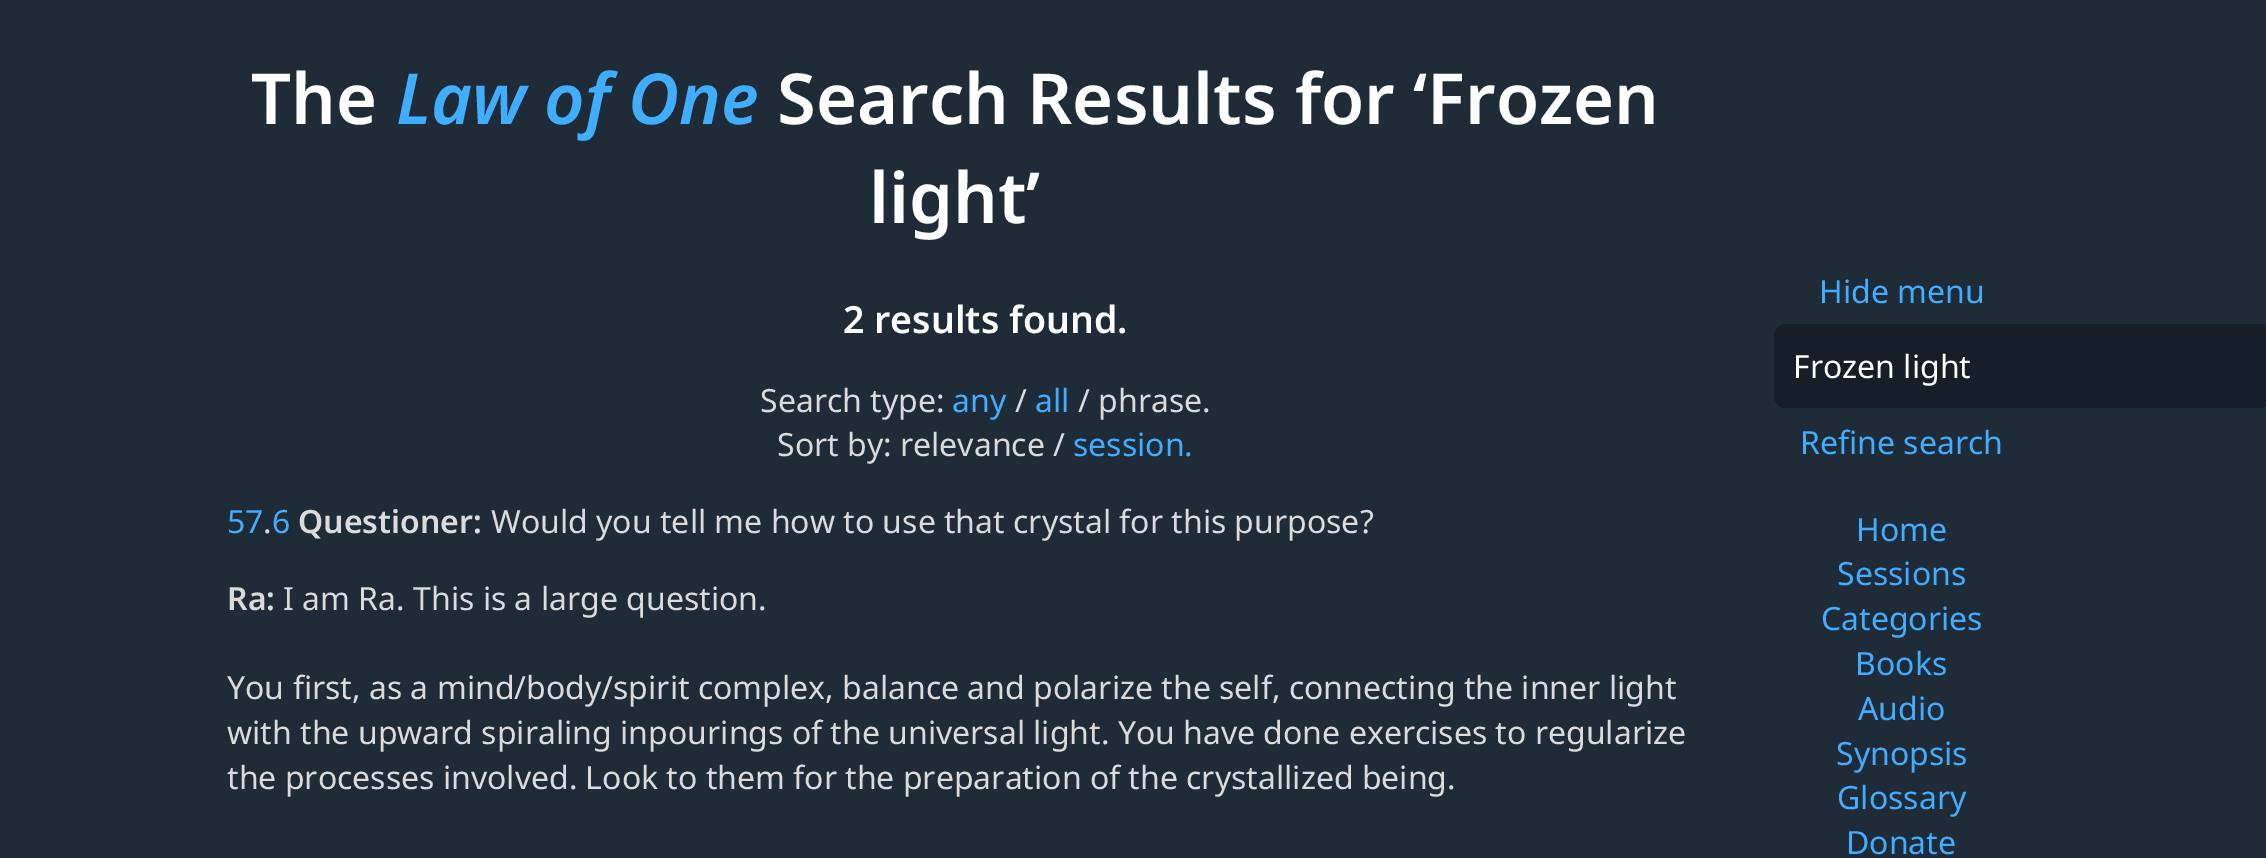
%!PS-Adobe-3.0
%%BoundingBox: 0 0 2266 858
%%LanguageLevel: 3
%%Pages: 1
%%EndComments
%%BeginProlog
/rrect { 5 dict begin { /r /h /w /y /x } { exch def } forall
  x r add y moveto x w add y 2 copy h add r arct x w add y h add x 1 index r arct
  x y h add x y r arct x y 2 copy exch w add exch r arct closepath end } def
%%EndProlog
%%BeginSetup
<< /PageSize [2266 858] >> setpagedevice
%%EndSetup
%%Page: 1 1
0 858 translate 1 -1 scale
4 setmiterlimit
0.125 0.169 0.22 setrgbcolor
0 0 2266 858 rectfill
0.086 0.122 0.153 setrgbcolor
1774 324 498 84 12 rrect fill
/NotoSans-SemiBold [70.4 0 0 -70.4 0 0] selectfont
1 setgray
251 124 moveto (The) show
/NotoSans-SemiBoldItalic [70.4 0 0 -70.4 0 0] selectfont
0.255 0.678 1 setrgbcolor
396 124 moveto (Law of One) show
/NotoSans-SemiBold [70.4 0 0 -70.4 0 0] selectfont
1 setgray
777 124 moveto (Search Results for ‘Frozen) show
869 223 moveto (light’) show
/NotoSans-SemiBold [37.5 0 0 -37.5 0 0] selectfont
843 333 moveto (2 results found.) show
/NotoSans-Regular [32 0 0 -32 0 0] selectfont
0.255 0.678 1 setrgbcolor
1819 303 moveto (Hide menu) show
1 setgray
1793 378 moveto (Frozen light) show
0.255 0.678 1 setrgbcolor
1800 454 moveto (Refine search) show
1856 541 moveto (Home) show
1837 585 moveto (Sessions) show
1821 630 moveto (Categories) show
1855 675 moveto (Books) show
1858 720 moveto (Audio) show
1836 765 moveto (Synopsis) show
1837 809 moveto (Glossary) show
1846 854 moveto (Donate) show
0.859 setgray
760 412 moveto (Search type:) show
0.255 0.678 1 setrgbcolor
952 412 moveto (any) show
0.859 setgray
1015 412 moveto (/) show
0.255 0.678 1 setrgbcolor
1035 412 moveto (all) show
0.859 setgray
1078 412 moveto (/ phrase.) show
777 456 moveto (Sort by: relevance /) show
0.255 0.678 1 setrgbcolor
1073 456 moveto (session.) show
227 533 moveto (57 6) show
/NotoSans-SemiBold [32 0 0 -32 0 0] selectfont
0.859 setgray
298 533 moveto (Questioner:) show
/NotoSans-Regular [32 0 0 -32 0 0] selectfont
491 533 moveto (Would you tell me how to use that crystal for this purpose?) show
263 533 moveto (.) show
/NotoSans-SemiBold [32 0 0 -32 0 0] selectfont
227 610 moveto (Ra:) show
/NotoSans-Regular [32 0 0 -32 0 0] selectfont
283 610 moveto (I am Ra. This is a large question.) show
227 699 moveto (You first, as a mind/body/spirit complex, balance and polarize the self, connecting the inner light) show
227 744 moveto (with the upward spiraling inpourings of the universal light. You have done exercises to regularize) show
227 789 moveto (the processes involved. Look to them for the preparation of the crystallized being.) show
showpage
%%EOF
